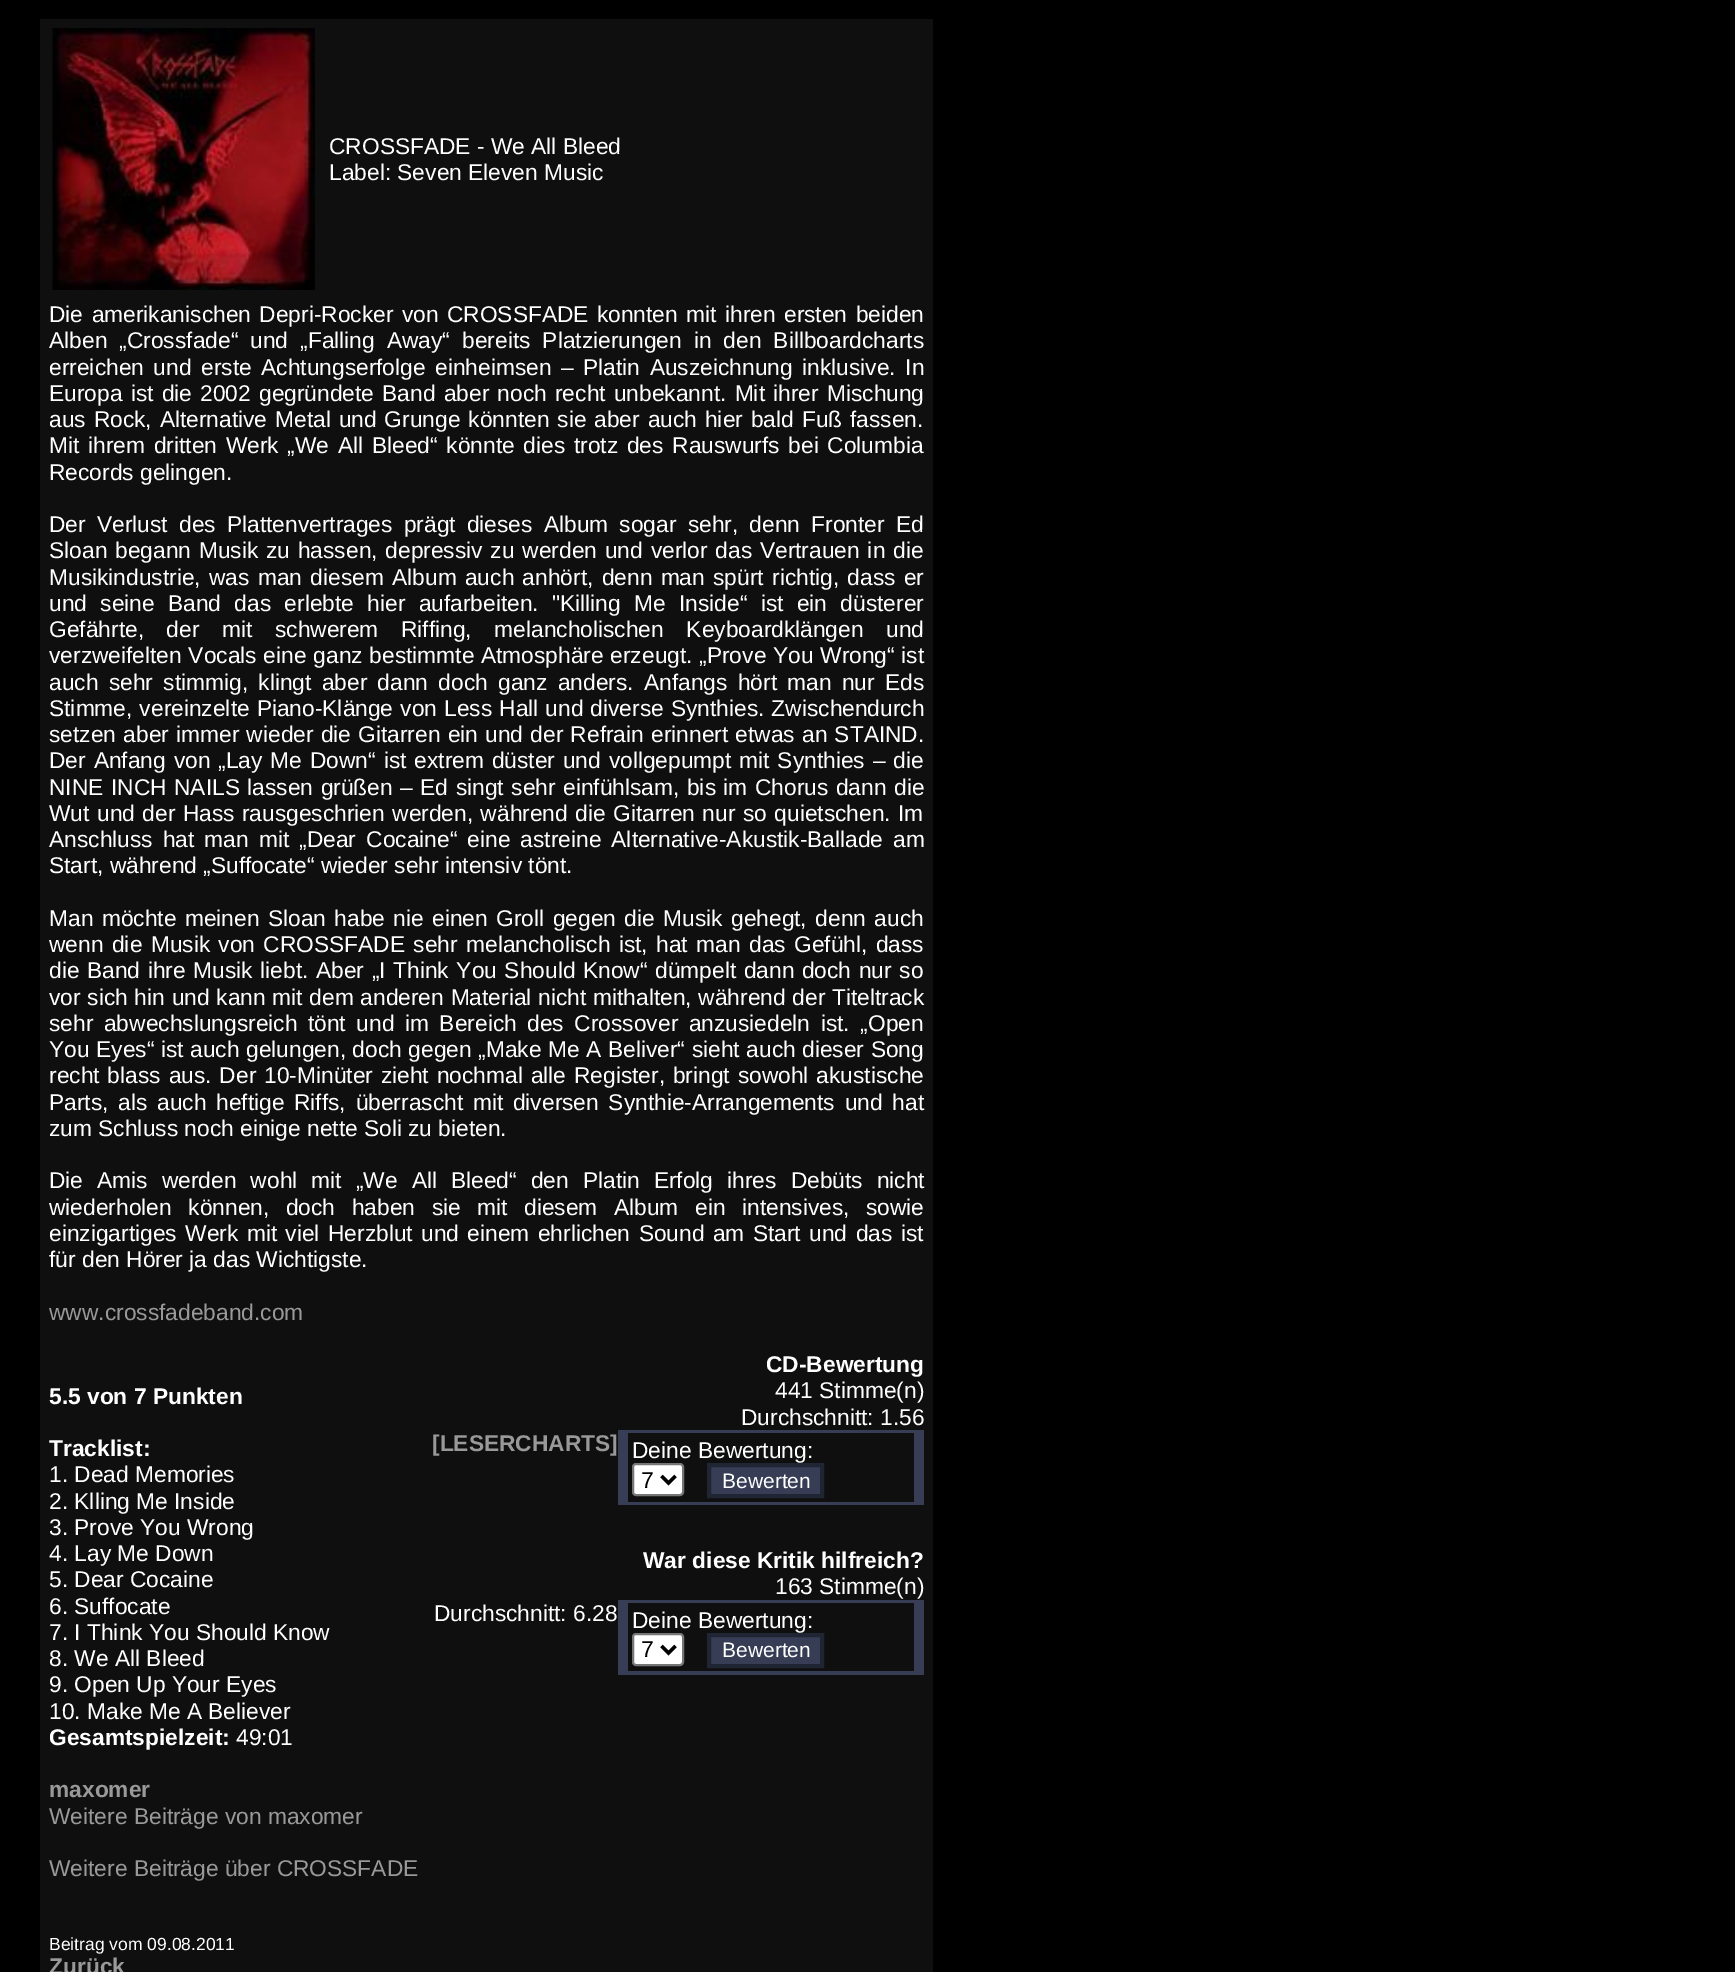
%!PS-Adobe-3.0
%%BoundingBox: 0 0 1735 1972
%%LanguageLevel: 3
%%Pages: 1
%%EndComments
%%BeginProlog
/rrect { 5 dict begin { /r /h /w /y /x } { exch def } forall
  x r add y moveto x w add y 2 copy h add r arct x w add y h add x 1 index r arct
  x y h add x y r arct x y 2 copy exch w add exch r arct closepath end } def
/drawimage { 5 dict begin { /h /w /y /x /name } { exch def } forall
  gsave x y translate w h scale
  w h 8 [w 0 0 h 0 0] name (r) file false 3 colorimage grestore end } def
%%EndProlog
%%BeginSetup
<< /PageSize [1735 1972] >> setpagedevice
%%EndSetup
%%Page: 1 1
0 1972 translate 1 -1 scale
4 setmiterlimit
0 setgray
0 0 1735 1972 rectfill
0.059 setgray
40 19 893 1953 rectfill
(images/1.raw) 52 28 263 262 drawimage
0.212 0.239 0.329 setrgbcolor
618 1430 306 75 rectfill
0.059 setgray
628 1433 286 69 rectfill
1 setgray
633 1464 50 31 3 rrect gsave fill grestore
0.463 setgray
2 setlinewidth
stroke
0 setgray
3.5 setlinewidth
newpath 661.5 1476 moveto 668.5 1483 lineto 675.5 1476 lineto stroke
0.212 0.239 0.329 setrgbcolor
newpath 709 1465 moveto 822 1465 lineto 822 1496 lineto 709 1496 lineto closepath gsave fill grestore
0.125 0.145 0.2 setrgbcolor
4 setlinewidth
stroke
0.212 0.239 0.329 setrgbcolor
618 1600 306 75 rectfill
0.059 setgray
628 1603 286 68 rectfill
1 setgray
633 1634 50 31 3 rrect gsave fill grestore
0.463 setgray
2 setlinewidth
stroke
0 setgray
3.5 setlinewidth
newpath 661.5 1646 moveto 668.5 1653 lineto 675.5 1646 lineto stroke
0.212 0.239 0.329 setrgbcolor
newpath 709 1635 moveto 822 1635 lineto 822 1666 lineto 709 1666 lineto closepath gsave fill grestore
0.125 0.145 0.2 setrgbcolor
4 setlinewidth
stroke
/LiberationSans-Regular [22.75 0 0 -22.75 0 0] selectfont
1 setgray
329 154 moveto (CROSSFADE - We All Bleed) show
329 180 moveto (Label: Seven Eleven Music) show
49 322 moveto 2.1 0 32 (Die amerikanischen Depri-Rocker von CROSSFADE konnten mit ihren ersten beiden) widthshow
49 348 moveto 5.75 0 32 (Alben „Crossfade“ und „Falling Away“ bereits Platzierungen in den Billboardcharts) widthshow
49 375 moveto 3.25 0 32 (erreichen und erste Achtungserfolge einheimsen – Platin Auszeichnung inklusive. In) widthshow
49 401 moveto 1.9 0 32 (Europa ist die 2002 gegründete Band aber noch recht unbekannt. Mit ihrer Mischung) widthshow
49 427 moveto 1.6 0 32 (aus Rock, Alternative Metal und Grunge könnten sie aber auch hier bald Fuß fassen.) widthshow
49 453 moveto 2.4 0 32 (Mit ihrem dritten Werk „We All Bleed“ könnte dies trotz des Rauswurfs bei Columbia) widthshow
49 480 moveto (Records gelingen.) show
49 532 moveto 4.9 0 32 (Der Verlust des Plattenvertrages prägt dieses Album sogar sehr, denn Fronter Ed) widthshow
49 558 moveto 1.5 0 32 (Sloan begann Musik zu hassen, depressiv zu werden und verlor das Vertrauen in die) widthshow
49 585 moveto 2 0 32 (Musikindustrie, was man diesem Album auch anhört, denn man spürt richtig, dass er) widthshow
49 611 moveto 7 0 32 (und seine Band das erlebte hier aufarbeiten. "Killing Me Inside“ ist ein düsterer) widthshow
49 637 moveto 16.25 0 32 (Gefährte, der mit schwerem Riffing, melancholischen Keyboardklängen und) widthshow
49 663 moveto 0.4 0 32 (verzweifelten Vocals eine ganz bestimmte Atmosphäre erzeugt. „Prove You Wrong“ ist) widthshow
49 690 moveto 4 0 32 (auch sehr stimmig, klingt aber dann doch ganz anders. Anfangs hört man nur Eds) widthshow
49 716 moveto 0.75 0 32 (Stimme, vereinzelte Piano-Klänge von Less Hall und diverse Synthies. Zwischendurch) widthshow
49 742 moveto 0.9 0 32 (setzen aber immer wieder die Gitarren ein und der Refrain erinnert etwas an STAIND.) widthshow
49 768 moveto 1.6 0 32 (Der Anfang von „Lay Me Down“ ist extrem düster und vollgepumpt mit Synthies – die) widthshow
49 795 moveto 1.2 0 32 (NINE INCH NAILS lassen grüßen – Ed singt sehr einfühlsam, bis im Chorus dann die) widthshow
49 821 moveto 1.1 0 32 (Wut und der Hass rausgeschrien werden, während die Gitarren nur so quietschen. Im) widthshow
49 847 moveto 3.75 0 32 (Anschluss hat man mit „Dear Cocaine“ eine astreine Alternative-Akustik-Ballade am) widthshow
49 873 moveto (Start, während „Suffocate“ wieder sehr intensiv tönt.) show
49 926 moveto 2.1 0 32 (Man möchte meinen Sloan habe nie einen Groll gegen die Musik gehegt, denn auch) widthshow
49 952 moveto 2.1 0 32 (wenn die Musik von CROSSFADE sehr melancholisch ist, hat man das Gefühl, dass) widthshow
49 978 moveto 1.3 0 32 (die Band ihre Musik liebt. Aber „I Think You Should Know“ dümpelt dann doch nur so) widthshow
49 1005 moveto 0.4 0 32 (vor sich hin und kann mit dem anderen Material nicht mithalten, während der Titeltrack) widthshow
49 1031 moveto 4.25 0 32 (sehr abwechslungsreich tönt und im Bereich des Crossover anzusiedeln ist. „Open) widthshow
49 1057 moveto 0.25 0 32 (You Eyes“ ist auch gelungen, doch gegen „Make Me A Beliver“ sieht auch dieser Song) widthshow
49 1083 moveto 1.6 0 32 (recht blass aus. Der 10-Minüter zieht nochmal alle Register, bringt sowohl akustische) widthshow
49 1110 moveto 3.4 0 32 (Parts, als auch heftige Riffs, überrascht mit diversen Synthie-Arrangements und hat) widthshow
49 1136 moveto (zum Schluss noch einige nette Soli zu bieten.) show
49 1188 moveto 7.75 0 32 (Die Amis werden wohl mit „We All Bleed“ den Platin Erfolg ihres Debüts nicht) widthshow
49 1215 moveto 10.25 0 32 (wiederholen können, doch haben sie mit diesem Album ein intensives, sowie) widthshow
49 1241 moveto 2.1 0 32 (einzigartiges Werk mit viel Herzblut und einem ehrlichen Sound am Start und das ist) widthshow
49 1267 moveto (für den Hörer ja das Wichtigste.) show
0.6 setgray
49 1320 moveto (www.crossfadeband.com) show
/LiberationSans-Bold [22.75 0 0 -22.75 0 0] selectfont
1 setgray
49 1404 moveto (5.5 von 7 Punkten) show
49 1456 moveto (Tracklist:) show
/LiberationSans-Regular [22.75 0 0 -22.75 0 0] selectfont
49 1482 moveto (1. Dead Memories) show
49 1509 moveto (2. Klling Me Inside) show
49 1535 moveto (3. Prove You Wrong) show
49 1561 moveto (4. Lay Me Down) show
49 1587 moveto (5. Dear Cocaine) show
49 1614 moveto (6. Suffocate) show
49 1640 moveto (7. I Think You Should Know) show
49 1666 moveto (8. We All Bleed) show
49 1692 moveto (9. Open Up Your Eyes) show
49 1719 moveto (10. Make Me A Believer) show
/LiberationSans-Bold [22.75 0 0 -22.75 0 0] selectfont
49 1745 moveto (Gesamtspielzeit:) show
/LiberationSans-Regular [22.75 0 0 -22.75 0 0] selectfont
236 1745 moveto (49:01) show
/LiberationSans-Bold [22.75 0 0 -22.75 0 0] selectfont
0.6 setgray
49 1797 moveto (maxomer) show
/LiberationSans-Regular [22.75 0 0 -22.75 0 0] selectfont
49 1824 moveto (Weitere Beiträge von maxomer) show
49 1876 moveto (Weitere Beiträge über CROSSFADE) show
/LiberationSans-Bold [22.75 0 0 -22.75 0 0] selectfont
1 setgray
766 1372 moveto (CD-Bewertung) show
/LiberationSans-Regular [22.75 0 0 -22.75 0 0] selectfont
775 1398 moveto (441 Stimme\(n\)) show
741 1425 moveto (Durchschnitt: 1.56) show
/LiberationSans-Bold [22.75 0 0 -22.75 0 0] selectfont
0.6 setgray
432 1451 moveto ([LESERCHARTS]) show
/LiberationSans-Regular [22.75 0 0 -22.75 0 0] selectfont
1 setgray
632 1458 moveto (Deine Bewertung:) show
/LiberationSans-Regular [23 0 0 -23 0 0] selectfont
0 setgray
641 1488 moveto (7) show
/LiberationSans-Regular [21 0 0 -21 0 0] selectfont
1 setgray
722 1488 moveto (Bewerten) show
/LiberationSans-Bold [22.75 0 0 -22.75 0 0] selectfont
643 1568 moveto (War diese Kritik hilfreich?) show
/LiberationSans-Regular [22.75 0 0 -22.75 0 0] selectfont
775 1594 moveto (163 Stimme\(n\)) show
434 1621 moveto (Durchschnitt: 6.28) show
632 1628 moveto (Deine Bewertung:) show
/LiberationSans-Regular [23 0 0 -23 0 0] selectfont
0 setgray
641 1657 moveto (7) show
/LiberationSans-Regular [21 0 0 -21 0 0] selectfont
1 setgray
722 1657 moveto (Bewerten) show
/LiberationSans-Regular [17.5 0 0 -17.5 0 0] selectfont
49 1950 moveto (Beitrag vom 09.08.2011) show
/LiberationSans-Bold [22.75 0 0 -22.75 0 0] selectfont
0.6 setgray
49 1974 moveto (Zurück) show
showpage
%%EOF
